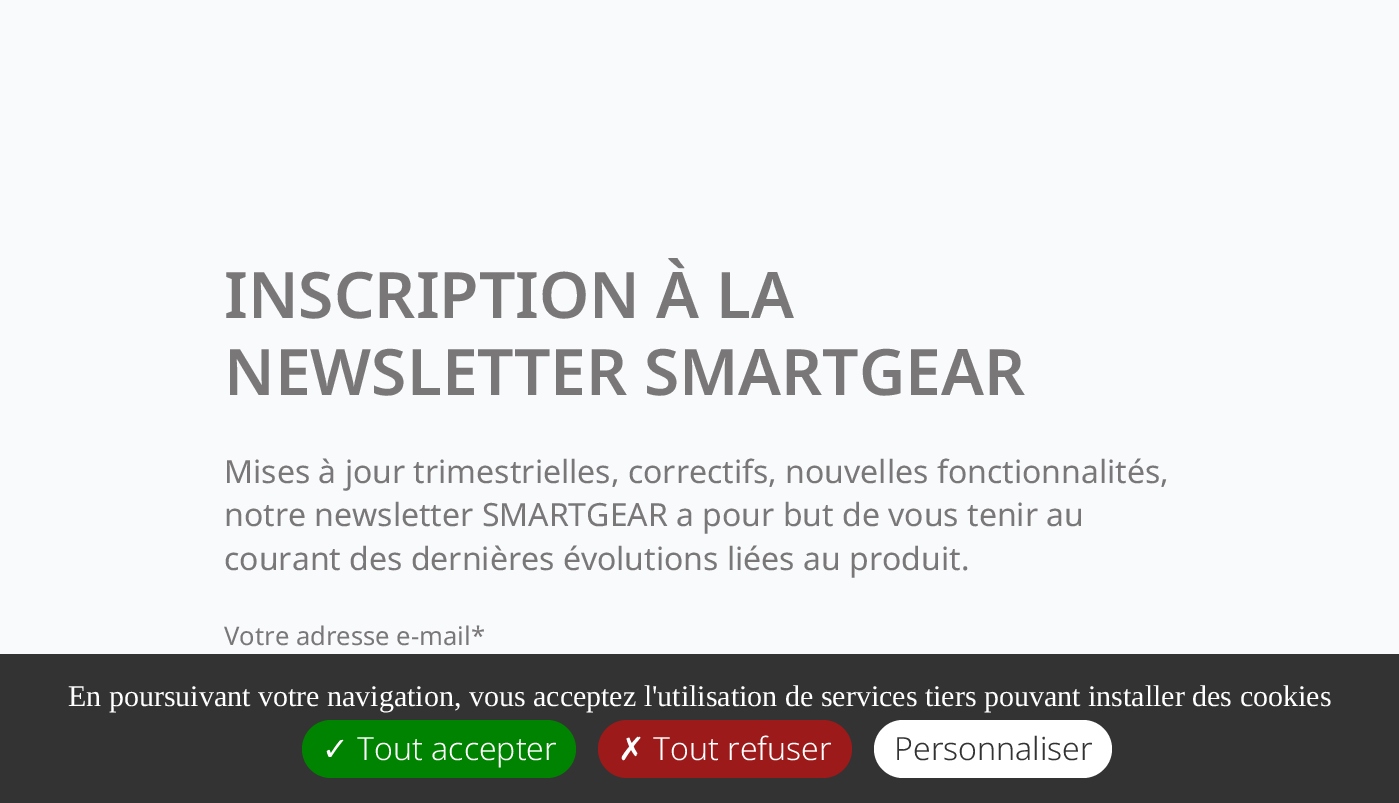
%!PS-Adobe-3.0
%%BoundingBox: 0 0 1399 803
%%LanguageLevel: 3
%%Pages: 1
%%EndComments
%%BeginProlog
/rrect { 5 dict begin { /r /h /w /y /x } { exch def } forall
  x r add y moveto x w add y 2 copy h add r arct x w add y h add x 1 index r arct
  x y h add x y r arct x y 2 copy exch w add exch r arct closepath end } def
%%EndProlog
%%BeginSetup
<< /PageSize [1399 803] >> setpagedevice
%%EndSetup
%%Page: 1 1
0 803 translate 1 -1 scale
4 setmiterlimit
0.973 0.98 0.988 setrgbcolor
0 0 1399 803 rectfill
0.2 setgray
0 654 1399 149 rectfill
0 0.514 0 setrgbcolor
302 720 274 58 29 rrect fill
0.612 0.102 0.102 setrgbcolor
598 720 254 58 29 rrect fill
1 setgray
874 720 238 58 29 rrect fill
/NotoSans-SemiBold [64 0 0 -64 0 0] selectfont
0.478 0.467 0.471 setrgbcolor
224 318 moveto (INSCRIPTION À LA) show
224 395 moveto (NEWSLETTER SMARTGEAR) show
/NotoSans-Regular [32 0 0 -32 0 0] selectfont
224 483 moveto (Mises à jour trimestrielles, correctifs, nouvelles fonctionnalités,) show
224 526 moveto (notre newsletter SMARTGEAR a pour but de vous tenir au) show
224 570 moveto (courant des dernières évolutions liées au produit.) show
/NotoSans-Regular [25.6 0 0 -25.6 0 0] selectfont
224 645 moveto (Votre adresse e-mail*) show
/LiberationSerif-Regular [30 0 0 -30 0 0] selectfont
1 setgray
68 706 moveto (En poursuivant votre navigation, vous acceptez l'utilisation de services tiers pouvant installer des cookies) show
/DejaVuSans-Regular [32 0 0 -32 0 0] selectfont
322 760 moveto (✓) show
/NotoSans-Light [32 0 0 -32 0 0] selectfont
357 760 moveto (Tout accepter) show
/DejaVuSans-Regular [32 0 0 -32 0 0] selectfont
618 760 moveto (✗) show
/NotoSans-Light [32 0 0 -32 0 0] selectfont
653 760 moveto (Tout refuser) show
0.2 setgray
894 760 moveto (Personnaliser) show
showpage
%%EOF
